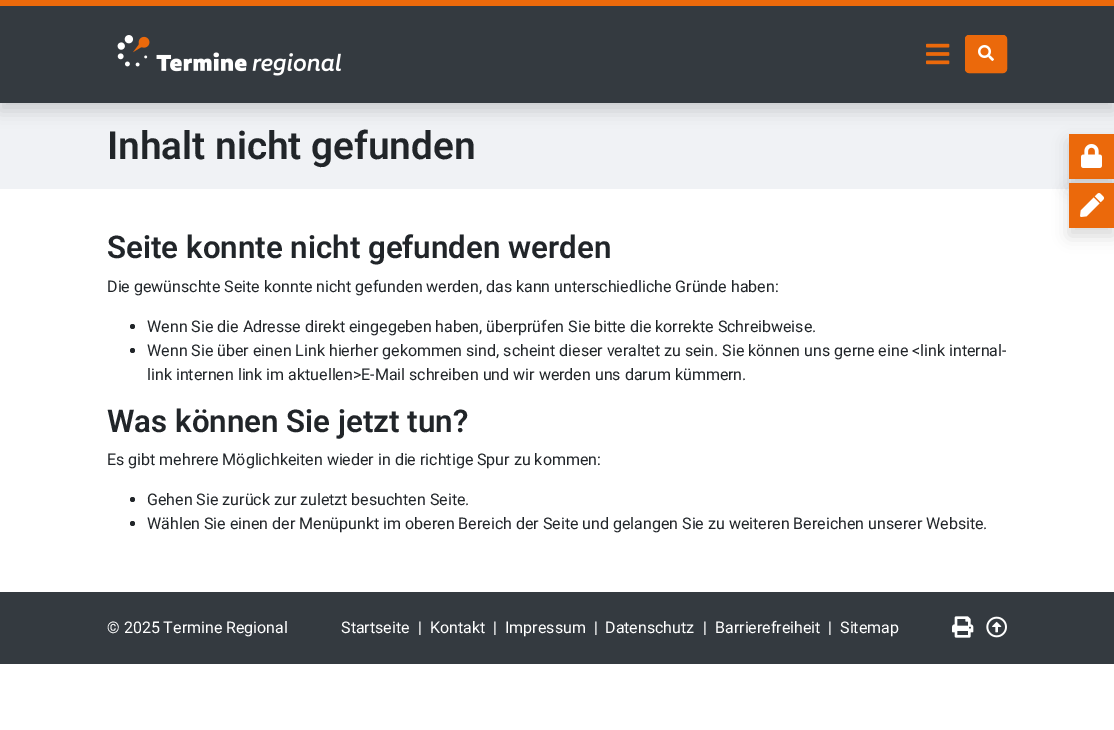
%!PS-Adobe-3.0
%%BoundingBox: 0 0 1114 730
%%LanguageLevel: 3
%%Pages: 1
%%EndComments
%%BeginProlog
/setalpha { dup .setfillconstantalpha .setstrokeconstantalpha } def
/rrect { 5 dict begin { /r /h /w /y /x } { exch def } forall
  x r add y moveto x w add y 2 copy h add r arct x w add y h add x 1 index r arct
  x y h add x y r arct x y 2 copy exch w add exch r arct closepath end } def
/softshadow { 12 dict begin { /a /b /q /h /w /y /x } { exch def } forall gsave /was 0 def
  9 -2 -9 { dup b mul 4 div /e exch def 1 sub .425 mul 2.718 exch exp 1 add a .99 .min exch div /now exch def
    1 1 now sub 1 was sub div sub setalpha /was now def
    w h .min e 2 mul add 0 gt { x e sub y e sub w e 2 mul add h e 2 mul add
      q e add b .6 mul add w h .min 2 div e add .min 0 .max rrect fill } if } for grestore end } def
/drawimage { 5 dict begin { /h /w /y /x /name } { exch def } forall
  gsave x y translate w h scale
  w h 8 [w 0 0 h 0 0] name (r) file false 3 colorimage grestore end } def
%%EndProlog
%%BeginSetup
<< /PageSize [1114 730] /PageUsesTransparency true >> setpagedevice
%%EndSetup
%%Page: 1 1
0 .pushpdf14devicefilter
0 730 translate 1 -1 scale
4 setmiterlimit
1 setgray
0 0 1114 730 rectfill
0.941 0.949 0.961 setrgbcolor
0 103 1114 86 rectfill
0 setgray
0 8 1114 103 0 8 0.15 softshadow
0.922 0.412 0.043 setrgbcolor
0 0 1114 6 rectfill
0.204 0.227 0.251 setrgbcolor
0 6 1114 97 rectfill
(images/1.raw) 117 35 224 41 drawimage
(images/2.raw) 926 43 24 22 drawimage
0.922 0.412 0.043 setrgbcolor
965.5 35.5 41 37 3.5 rrect gsave fill grestore
stroke
(images/3.raw) 978 45 16 16 drawimage
0.129 0.145 0.161 setrgbcolor
newpath 132.5 326.5 2.5 0 360 arc closepath fill
newpath 132.5 350.5 2.5 0 360 arc closepath fill
newpath 132.5 499.5 2.5 0 360 arc closepath fill
newpath 132.5 523.5 2.5 0 360 arc closepath fill
0 setgray
1069 142 45 45 0 8 0.15 softshadow
0.922 0.412 0.043 setrgbcolor
1069 134 45 45 rectfill
(images/4.raw) 1081 144 21 24 drawimage
0 setgray
1069 191 45 45 0 8 0.15 softshadow
0.922 0.412 0.043 setrgbcolor
1069 183 45 45 rectfill
(images/5.raw) 1080 193 24 24 drawimage
0.204 0.227 0.251 setrgbcolor
0 592 1114 72 rectfill
(images/6.raw) 952 616 22 22 drawimage
(images/7.raw) 986 616 21 22 drawimage
/Roboto-SemiBold [38.75 0 0 -38.75 0 0] selectfont
0.129 0.145 0.161 setrgbcolor
107 159 moveto (Inhalt nicht gefunden) show
/Roboto-SemiBold [31.25 0 0 -31.25 0 0] selectfont
107 258 moveto (Seite konnte nicht gefunden werden) show
/Roboto-Regular [16 0 0 -16 0 0] selectfont
107 292 moveto (Die gewünschte Seite konnte nicht gefunden werden, das kann unterschiedliche Gründe haben:) show
147 332 moveto (Wenn Sie die Adresse direkt eingegeben haben, überprüfen Sie bitte die korrekte Schreibweise.) show
147 356 moveto (Wenn Sie über einen Link hierher gekommen sind, scheint dieser veraltet zu sein. Sie können uns gerne eine <link internal-) show
147 380 moveto (link internen link im aktuellen>E-Mail schreiben und wir werden uns darum kümmern.) show
/Roboto-SemiBold [31.25 0 0 -31.25 0 0] selectfont
107 432 moveto (Was können Sie jetzt tun?) show
/Roboto-Regular [16 0 0 -16 0 0] selectfont
107 465 moveto (Es gibt mehrere Möglichkeiten wieder in die richtige Spur zu kommen:) show
147 505 moveto (Gehen Sie zurück zur zuletzt besuchten Seite.) show
147 529 moveto (Wählen Sie einen der Menüpunkt im oberen Bereich der Seite und gelangen Sie zu weiteren Bereichen unserer Website.) show
1 setgray
107 633 moveto (© 2025 Termine Regional) show
341 633 moveto (Startseite) show
418 633 moveto (|) show
430 633 moveto (Kontakt) show
493 633 moveto (|) show
505 633 moveto (Impressum) show
594 633 moveto (|) show
605 633 moveto (Datenschutz) show
703 633 moveto (|) show
715 633 moveto (Barrierefreiheit) show
828 633 moveto (|) show
840 633 moveto (Sitemap) show
.poppdf14devicefilter showpage
%%EOF
